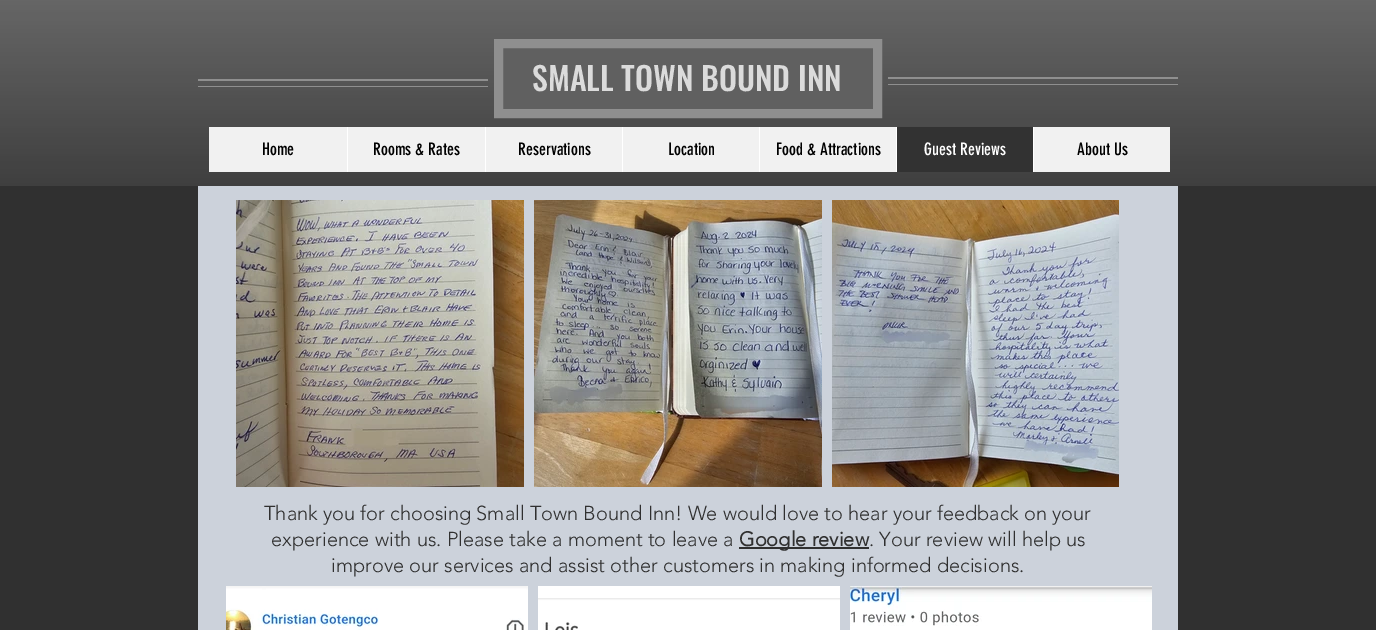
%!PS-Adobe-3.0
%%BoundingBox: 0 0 1376 630
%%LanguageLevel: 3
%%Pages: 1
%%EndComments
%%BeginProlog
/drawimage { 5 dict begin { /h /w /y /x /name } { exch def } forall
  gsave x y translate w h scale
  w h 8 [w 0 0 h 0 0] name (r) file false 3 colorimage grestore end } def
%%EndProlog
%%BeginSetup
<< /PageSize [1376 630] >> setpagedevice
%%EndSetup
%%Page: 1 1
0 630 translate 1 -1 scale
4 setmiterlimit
0.188 setgray
0 0 1376 630 rectfill
(images/1.raw) 0 0 1376 186 drawimage
0.561 setgray
198 79 290 2 rectfill
198 86 290 1 rectfill
0.376 setgray
newpath 498.5 43.5 moveto 877.5 43.5 lineto 877.5 113.5 lineto 498.5 113.5 lineto closepath gsave fill grestore
0.561 setgray
9 setlinewidth
stroke
888 77 290 2 rectfill
888 84 290 1 rectfill
0.945 setgray
209 127 961 45 rectfill
1 setgray
347 127 1 45 rectfill
485 127 1 45 rectfill
622 127 1 45 rectfill
759 127 1 45 rectfill
0.196 setgray
897 127 136 45 rectfill
1 setgray
896 127 1 45 rectfill
1033 127 1 45 rectfill
0.8 0.824 0.859 setrgbcolor
198 186 980 444 rectfill
(images/2.raw) 236 200 288 287 drawimage
(images/3.raw) 534 200 288 287 drawimage
(images/4.raw) 832 200 287 287 drawimage
0.188 setgray
739 547 130 2 rectfill
(images/5.raw) 226 586 302 44 drawimage
(images/6.raw) 538 586 302 44 drawimage
(images/7.raw) 850 586 302 44 drawimage
/Oswald-Medium [32 0 0 -32 0 0] selectfont
0.859 setgray
532 91 moveto (SMALL TOWN BOUND INN) show
/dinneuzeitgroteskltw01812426-Regular [17 0 0 -17 0 0] selectfont
0 setgray
262 155 moveto (Home) show
373 155 moveto (Rooms & Rates) show
518 155 moveto (Reservations) show
668 155 moveto (Location) show
776 155 moveto (Food & Attractions) show
1 setgray
924 155 moveto (Guest Reviews) show
0 setgray
1077 155 moveto (About Us) show
/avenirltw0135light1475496-Light [20 0 0 -20 0 0] selectfont
0.188 setgray
264 520 moveto (Thank you for choosing Small Town Bound Inn! We would love to hear your feedback on your) show
271 546 moveto (experience with us. Please take a moment to leave a) show
/avenirltw0135light1475496-Bold [20 0 0 -20 0 0] selectfont
739 546 moveto (Google review) show
/avenirltw0135light1475496-Light [20 0 0 -20 0 0] selectfont
869 546 moveto (. Your review will help us) show
331 572 moveto (improve our services and assist other customers in making informed decisions.) show
showpage
%%EOF
